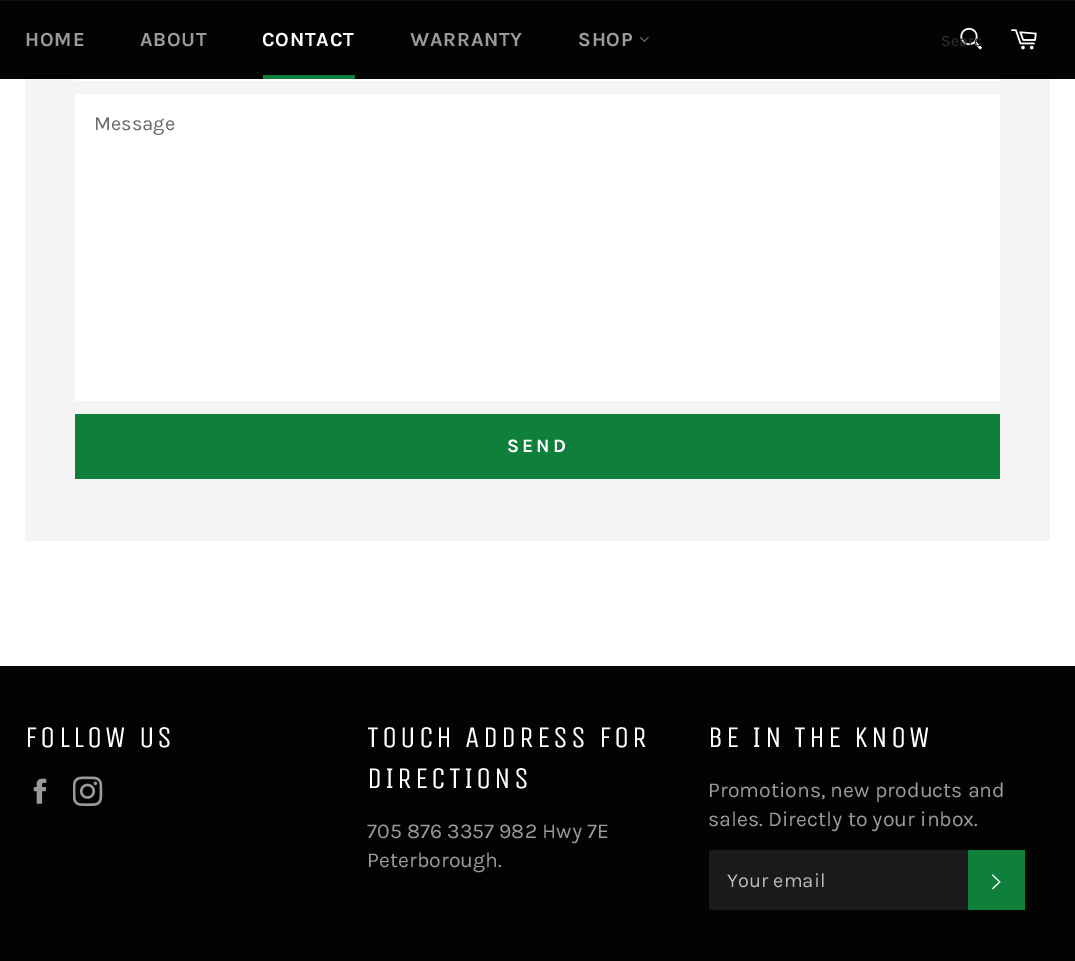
%!PS-Adobe-3.0
%%BoundingBox: 0 0 1075 961
%%LanguageLevel: 3
%%Pages: 1
%%EndComments
%%BeginProlog
/drawimage { 5 dict begin { /h /w /y /x /name } { exch def } forall
  gsave x y translate w h scale
  w h 8 [w 0 0 h 0 0] name (r) file false 3 colorimage grestore end } def
%%EndProlog
%%BeginSetup
<< /PageSize [1075 961] >> setpagedevice
%%EndSetup
%%Page: 1 1
0 961 translate 1 -1 scale
4 setmiterlimit
1 setgray
0 0 1075 961 rectfill
0.012 setgray
0 1 1075 78 rectfill
0.063 setgray
0 0 1075 1 rectfill
0.059 0.498 0.235 setrgbcolor
263 75 92 4 rectfill
(images/1.raw) 640 36 9 6 drawimage
(images/2.raw) 960 27 22 23 drawimage
(images/3.raw) 1011 29 26 21 drawimage
0.957 setgray
25 79 1025 462 rectfill
1 setgray
75 79 925 2 rectfill
75 94 925 307 rectfill
0.059 0.498 0.235 setrgbcolor
75 414 925 65 rectfill
0.012 setgray
0 666 1075 295 rectfill
(images/4.raw) 33 778 14 26 drawimage
(images/5.raw) 73 776 30 30 drawimage
0.102 setgray
709 850 259 60 rectfill
0.059 0.498 0.235 setrgbcolor
968 850 57 60 rectfill
(images/6.raw) 991 874 10 16 drawimage
/Karla-Bold [20 0 0 -20 0 0] selectfont
0.604 setgray
25 46 moveto 0.75 0 (HOME) ashow
140 46 moveto 0.75 0 (ABOUT) ashow
1 setgray
262 46 moveto 0.75 0 (CONTACT) ashow
0.604 setgray
410 46 moveto 0.75 0 (WARRANTY) ashow
578 46 moveto 0.75 0 (SHOP) ashow
gsave
941 31 40 19 rectclip
/Karla-Regular [16 0 0 -16 0 0] selectfont
0.18 setgray
941 46 moveto (Searc) show
grestore
/Karla-Regular [20 0 0 -20 0 0] selectfont
0.412 setgray
94 130 moveto (Message) show
/Karla-Bold [19 0 0 -19 0 0] selectfont
1 setgray
507 452 moveto 3 0 (SEND) ashow
/UnicaOne-Regular [30 0 0 -30 0 0] selectfont
25 747 moveto 3 0 (FOLLOW US) ashow
367 747 moveto 3 0 (TOUCH ADDRESS FOR) ashow
367 788 moveto 3 0 (DIRECTIONS) ashow
/Karla-Regular [21.25 0 0 -21.25 0 0] selectfont
0.604 setgray
367 838 moveto (705 876 3357 982 Hwy 7E) show
367 867 moveto (Peterborough.) show
/UnicaOne-Regular [30 0 0 -30 0 0] selectfont
1 setgray
708 747 moveto 3 0 (BE IN THE KNOW) ashow
/Karla-Regular [21.25 0 0 -21.25 0 0] selectfont
0.604 setgray
708 797 moveto (Promotions, new products and) show
708 826 moveto (sales. Directly to your inbox.) show
/Karla-Regular [20 0 0 -20 0 0] selectfont
0.729 setgray
727 887 moveto (Your email) show
showpage
%%EOF
